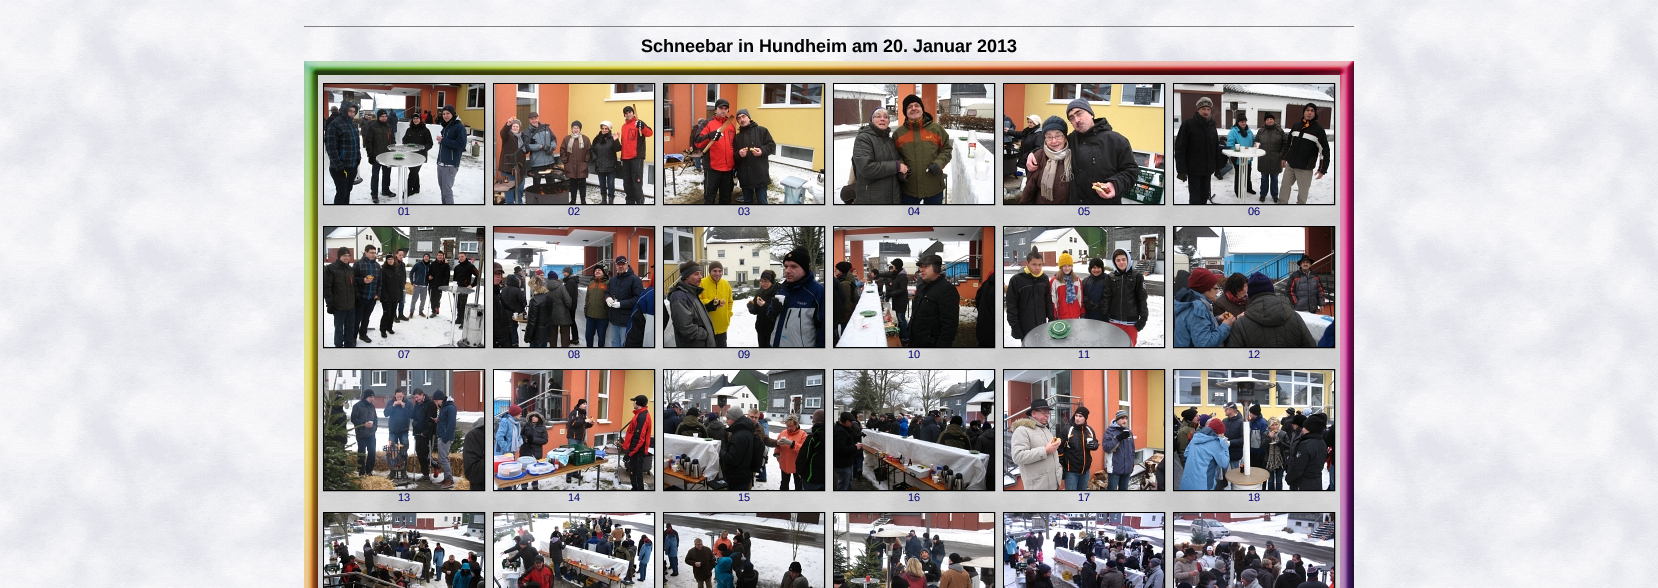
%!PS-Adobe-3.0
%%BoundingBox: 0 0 1658 588
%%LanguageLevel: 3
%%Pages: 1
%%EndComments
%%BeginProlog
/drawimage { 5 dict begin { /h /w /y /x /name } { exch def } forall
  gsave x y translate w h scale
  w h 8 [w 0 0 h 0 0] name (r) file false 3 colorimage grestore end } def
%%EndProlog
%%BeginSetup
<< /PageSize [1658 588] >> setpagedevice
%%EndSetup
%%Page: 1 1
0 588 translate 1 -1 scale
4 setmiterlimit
1 setgray
0 0 1658 588 rectfill
(images/1.raw) 0 0 1658 588 drawimage
0.502 setgray
304 26 1050 1 rectfill
(images/2.raw) 318 75 1022 513 drawimage
(images/3.raw) 304 61 14 14 drawimage
(images/4.raw) 318 61 1022 14 drawimage
(images/5.raw) 1340 61 14 14 drawimage
(images/6.raw) 304 75 14 513 drawimage
0 setgray
323.5 83.5 161 121 rectstroke
(images/7.raw) 324 84 160 120 drawimage
493.5 83.5 161 121 rectstroke
(images/8.raw) 494 84 160 120 drawimage
663.5 83.5 161 121 rectstroke
(images/9.raw) 664 84 160 120 drawimage
833.5 83.5 161 121 rectstroke
(images/10.raw) 834 84 160 120 drawimage
1003.5 83.5 161 121 rectstroke
(images/11.raw) 1004 84 160 120 drawimage
1173.5 83.5 161 121 rectstroke
(images/12.raw) 1174 84 160 120 drawimage
323.5 226.5 161 121 rectstroke
(images/13.raw) 324 227 160 120 drawimage
493.5 226.5 161 121 rectstroke
(images/14.raw) 494 227 160 120 drawimage
663.5 226.5 161 121 rectstroke
(images/15.raw) 664 227 160 120 drawimage
833.5 226.5 161 121 rectstroke
(images/16.raw) 834 227 160 120 drawimage
1003.5 226.5 161 121 rectstroke
(images/17.raw) 1004 227 160 120 drawimage
1173.5 226.5 161 121 rectstroke
(images/18.raw) 1174 227 160 120 drawimage
323.5 369.5 161 121 rectstroke
(images/19.raw) 324 370 160 120 drawimage
493.5 369.5 161 121 rectstroke
(images/20.raw) 494 370 160 120 drawimage
663.5 369.5 161 121 rectstroke
(images/21.raw) 664 370 160 120 drawimage
833.5 369.5 161 121 rectstroke
(images/22.raw) 834 370 160 120 drawimage
1003.5 369.5 161 121 rectstroke
(images/23.raw) 1004 370 160 120 drawimage
1173.5 369.5 161 121 rectstroke
(images/24.raw) 1174 370 160 120 drawimage
323.5 512.5 161 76 rectstroke
(images/25.raw) 324 513 160 75 drawimage
493.5 512.5 161 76 rectstroke
(images/26.raw) 494 513 160 75 drawimage
663.5 512.5 161 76 rectstroke
(images/27.raw) 664 513 160 75 drawimage
833.5 512.5 161 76 rectstroke
(images/28.raw) 834 513 160 75 drawimage
1003.5 512.5 161 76 rectstroke
(images/29.raw) 1004 513 160 75 drawimage
1173.5 512.5 161 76 rectstroke
(images/30.raw) 1174 513 160 75 drawimage
(images/31.raw) 1340 75 14 513 drawimage
/LiberationSans-Bold [18 0 0 -18 0 0] selectfont
641 52 moveto (Schneebar in Hundheim am 20. Januar 2013) show
/LiberationSans-Regular [11 0 0 -11 0 0] selectfont
0 0 0.439 setrgbcolor
398 215 moveto (01) show
568 215 moveto (02) show
738 215 moveto (03) show
908 215 moveto (04) show
1078 215 moveto (05) show
1248 215 moveto (06) show
398 358 moveto (07) show
568 358 moveto (08) show
738 358 moveto (09) show
908 358 moveto (10) show
1078 358 moveto (11) show
1248 358 moveto (12) show
398 501 moveto (13) show
568 501 moveto (14) show
738 501 moveto (15) show
908 501 moveto (16) show
1078 501 moveto (17) show
1248 501 moveto (18) show
showpage
%%EOF
